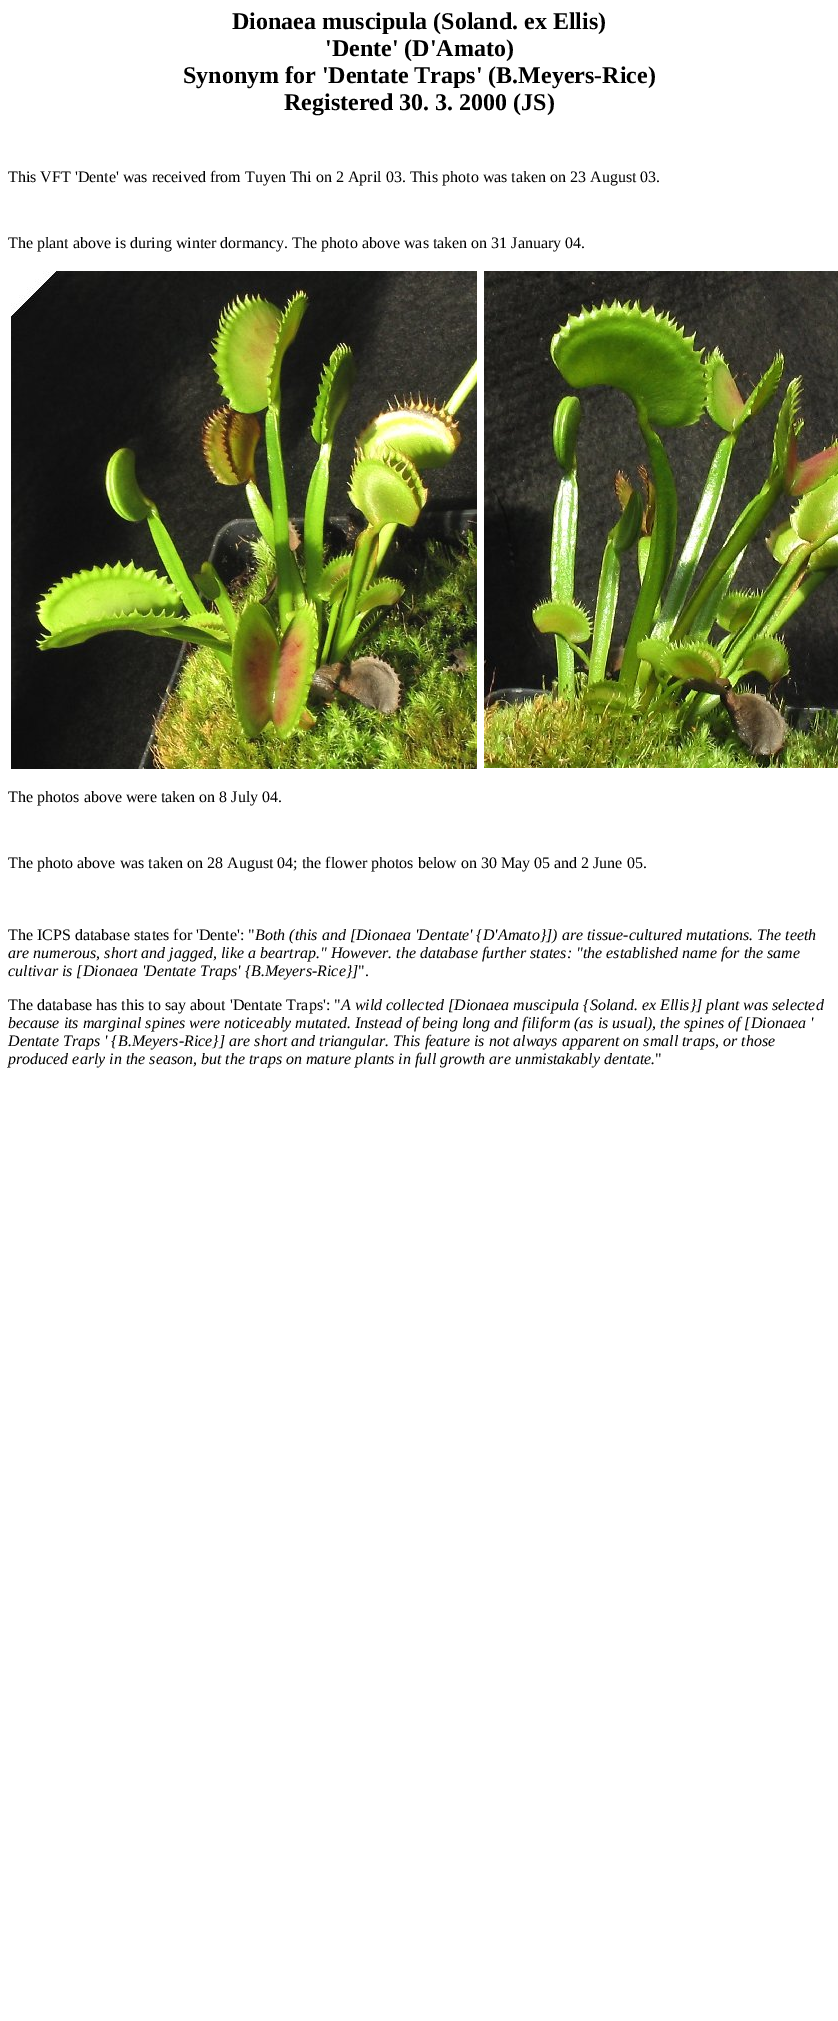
%!PS-Adobe-3.0
%%BoundingBox: 0 0 838 2021
%%LanguageLevel: 3
%%Pages: 1
%%EndComments
%%BeginProlog
/drawimage { 5 dict begin { /h /w /y /x /name } { exch def } forall
  gsave x y translate w h scale
  w h 8 [w 0 0 h 0 0] name (r) file false 3 colorimage grestore end } def
%%EndProlog
%%BeginSetup
<< /PageSize [838 2021] >> setpagedevice
%%EndSetup
%%Page: 1 1
0 2021 translate 1 -1 scale
4 setmiterlimit
1 setgray
0 0 838 2021 rectfill
(images/1.raw) 11 271 466 498 drawimage
(images/2.raw) 484 271 354 497 drawimage
/LiberationSerif-Bold [24 0 0 -24 0 0] selectfont
0 setgray
232 29 moveto (Dionaea muscipula \(Soland. ex Ellis\)) show
325 56 moveto ('Dente' \(D'Amato\)) show
183 83 moveto (Synonym for 'Dentate Traps' \(B.Meyers-Rice\)) show
284 110 moveto (Registered 30. 3. 2000 \(JS\)) show
/LiberationSerif-Regular [16 0 0 -16 0 0] selectfont
8 182 moveto (This VFT 'Dente' was received from Tuyen Thi on 2 April 03. This photo was taken on 23 August 03.) show
8 248 moveto (The plant above is during winter dormancy. The photo above was taken on 31 January 04.) show
8 802 moveto (The photos above were taken on 8 July 04.) show
8 868 moveto (The photo above was taken on 28 August 04; the flower photos below on 30 May 05 and 2 June 05.) show
8 940 moveto (The ICPS database states for 'Dente': ") show
/LiberationSerif-Italic [16 0 0 -16 0 0] selectfont
255 940 moveto (Both \(this and [Dionaea 'Dentate' {D'Amato}]\) are tissue-cultured mutations. The teeth) show
8 958 moveto (are numerous, short and jagged, like a beartrap." However. the database further states: "the established name for the same) show
8 976 moveto (cultivar is [Dionaea 'Dentate Traps' {B.Meyers-Rice}]) show
/LiberationSerif-Regular [16 0 0 -16 0 0] selectfont
358 976 moveto (".) show
8 1010 moveto (The database has this to say about 'Dentate Traps': ") show
/LiberationSerif-Italic [16 0 0 -16 0 0] selectfont
341 1010 moveto (A wild collected [Dionaea muscipula {Soland. ex Ellis}] plant was selected) show
8 1028 moveto (because its marginal spines were noticeably mutated. Instead of being long and filiform \(as is usual\), the spines of [Dionaea ') show
8 1046 moveto (Dentate Traps ' {B.Meyers-Rice}] are short and triangular. This feature is not always apparent on small traps, or those) show
8 1064 moveto (produced early in the season, but the traps on mature plants in full growth are unmistakably dentate.) show
/LiberationSerif-Regular [16 0 0 -16 0 0] selectfont
655 1064 moveto (") show
showpage
%%EOF
